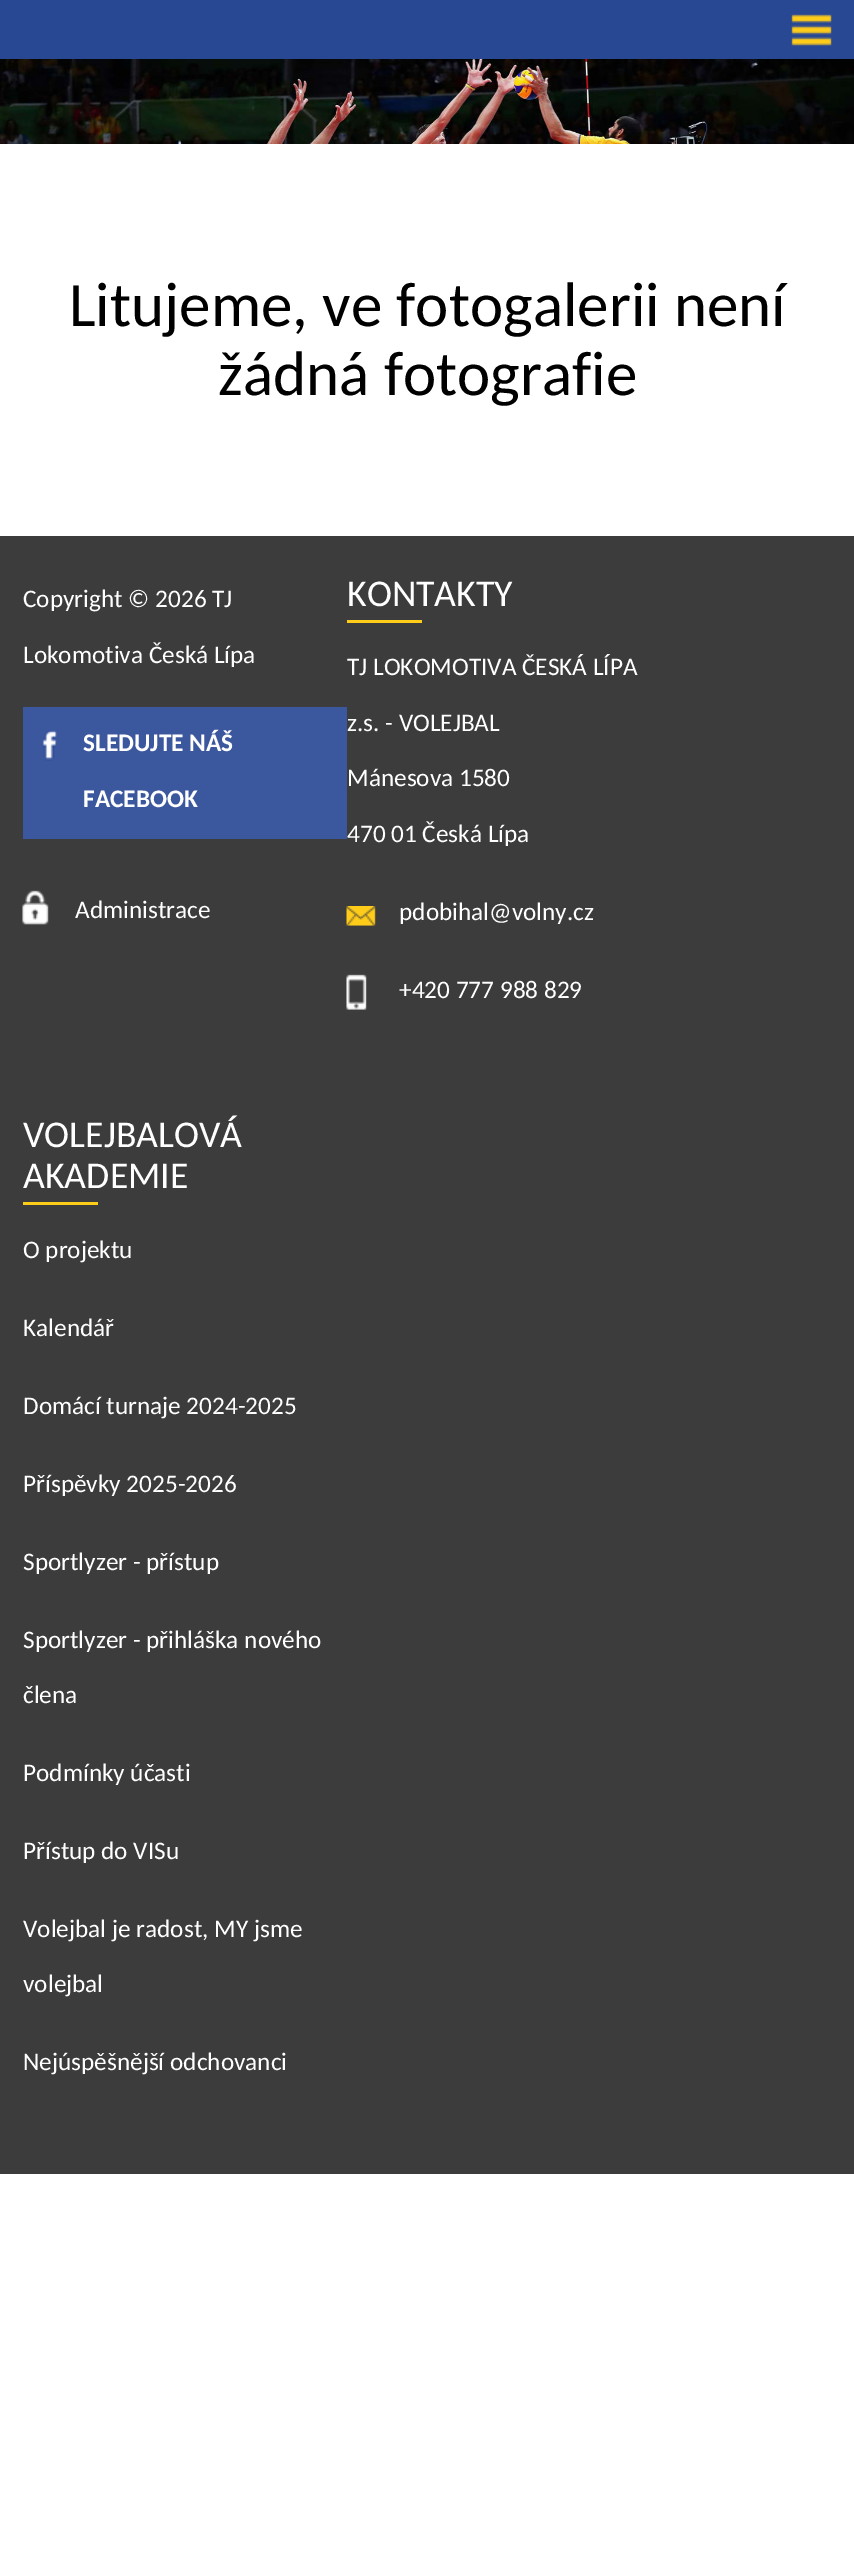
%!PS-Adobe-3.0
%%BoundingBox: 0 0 854 2558
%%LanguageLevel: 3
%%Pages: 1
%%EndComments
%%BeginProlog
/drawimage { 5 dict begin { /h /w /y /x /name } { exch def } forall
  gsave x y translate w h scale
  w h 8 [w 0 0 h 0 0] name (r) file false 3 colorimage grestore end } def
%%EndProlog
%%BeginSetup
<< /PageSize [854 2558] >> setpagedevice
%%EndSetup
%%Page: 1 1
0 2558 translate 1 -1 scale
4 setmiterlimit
1 setgray
0 0 854 2558 rectfill
0.161 0.282 0.58 setrgbcolor
0 0 854 59 rectfill
(images/1.raw) 791 14 41 32 drawimage
(images/2.raw) 0 59 854 85 drawimage
0.235 setgray
0 536 854 1638 rectfill
0.231 0.341 0.616 setrgbcolor
23 707 324 132 rectfill
(images/3.raw) 42 730 15 31 drawimage
(images/4.raw) 22 890 27 35 drawimage
1 0.8 0.102 setrgbcolor
347 620 75 3 rectfill
(images/5.raw) 346 906 30 20 drawimage
(images/6.raw) 346 974 21 36 drawimage
23 1202 75 3 rectfill
/Carlito-Regular [63 0 0 -63 0 0] selectfont
0 setgray
69 326 moveto (Litujeme, ve fotogalerii není) show
218 395 moveto (žádná fotografie) show
/Carlito-Regular [25.25 0 0 -25.25 0 0] selectfont
1 setgray
23 607 moveto (Copyright © 2026 TJ) show
23 663 moveto (Lokomotiva Česká Lípa) show
/Carlito-Bold [25.25 0 0 -25.25 0 0] selectfont
83 751 moveto (SLEDUJTE NÁŠ) show
83 807 moveto (FACEBOOK) show
/Carlito-Regular [25.25 0 0 -25.25 0 0] selectfont
75 918 moveto (Administrace) show
/Carlito-Regular [37.75 0 0 -37.75 0 0] selectfont
347 606 moveto (KONTAKTY) show
/Carlito-Regular [25.25 0 0 -25.25 0 0] selectfont
347 675 moveto (TJ LOKOMOTIVA ČESKÁ LÍPA) show
347 731 moveto (z.s. - VOLEJBAL) show
347 786 moveto (Mánesova 1580) show
347 842 moveto (470 01 Česká Lípa) show
399 920 moveto (pdobihal@volny.cz) show
399 998 moveto (+420 777 988 829) show
/Carlito-Regular [37.75 0 0 -37.75 0 0] selectfont
23 1147 moveto (VOLEJBALOVÁ) show
23 1188 moveto (AKADEMIE) show
/Carlito-Regular [25.25 0 0 -25.25 0 0] selectfont
23 1258 moveto (O projektu) show
23 1336 moveto (Kalendář) show
23 1414 moveto (Domácí turnaje 2024-2025) show
23 1492 moveto (Příspěvky 2025-2026) show
23 1570 moveto (Sportlyzer - přístup) show
23 1648 moveto (Sportlyzer - přihláška nového) show
23 1703 moveto (člena) show
23 1781 moveto (Podmínky účasti) show
23 1859 moveto (Přístup do VISu) show
23 1937 moveto (Volejbal je radost, MY jsme) show
23 1992 moveto (volejbal) show
23 2070 moveto (Nejúspěšnější odchovanci) show
showpage
%%EOF
